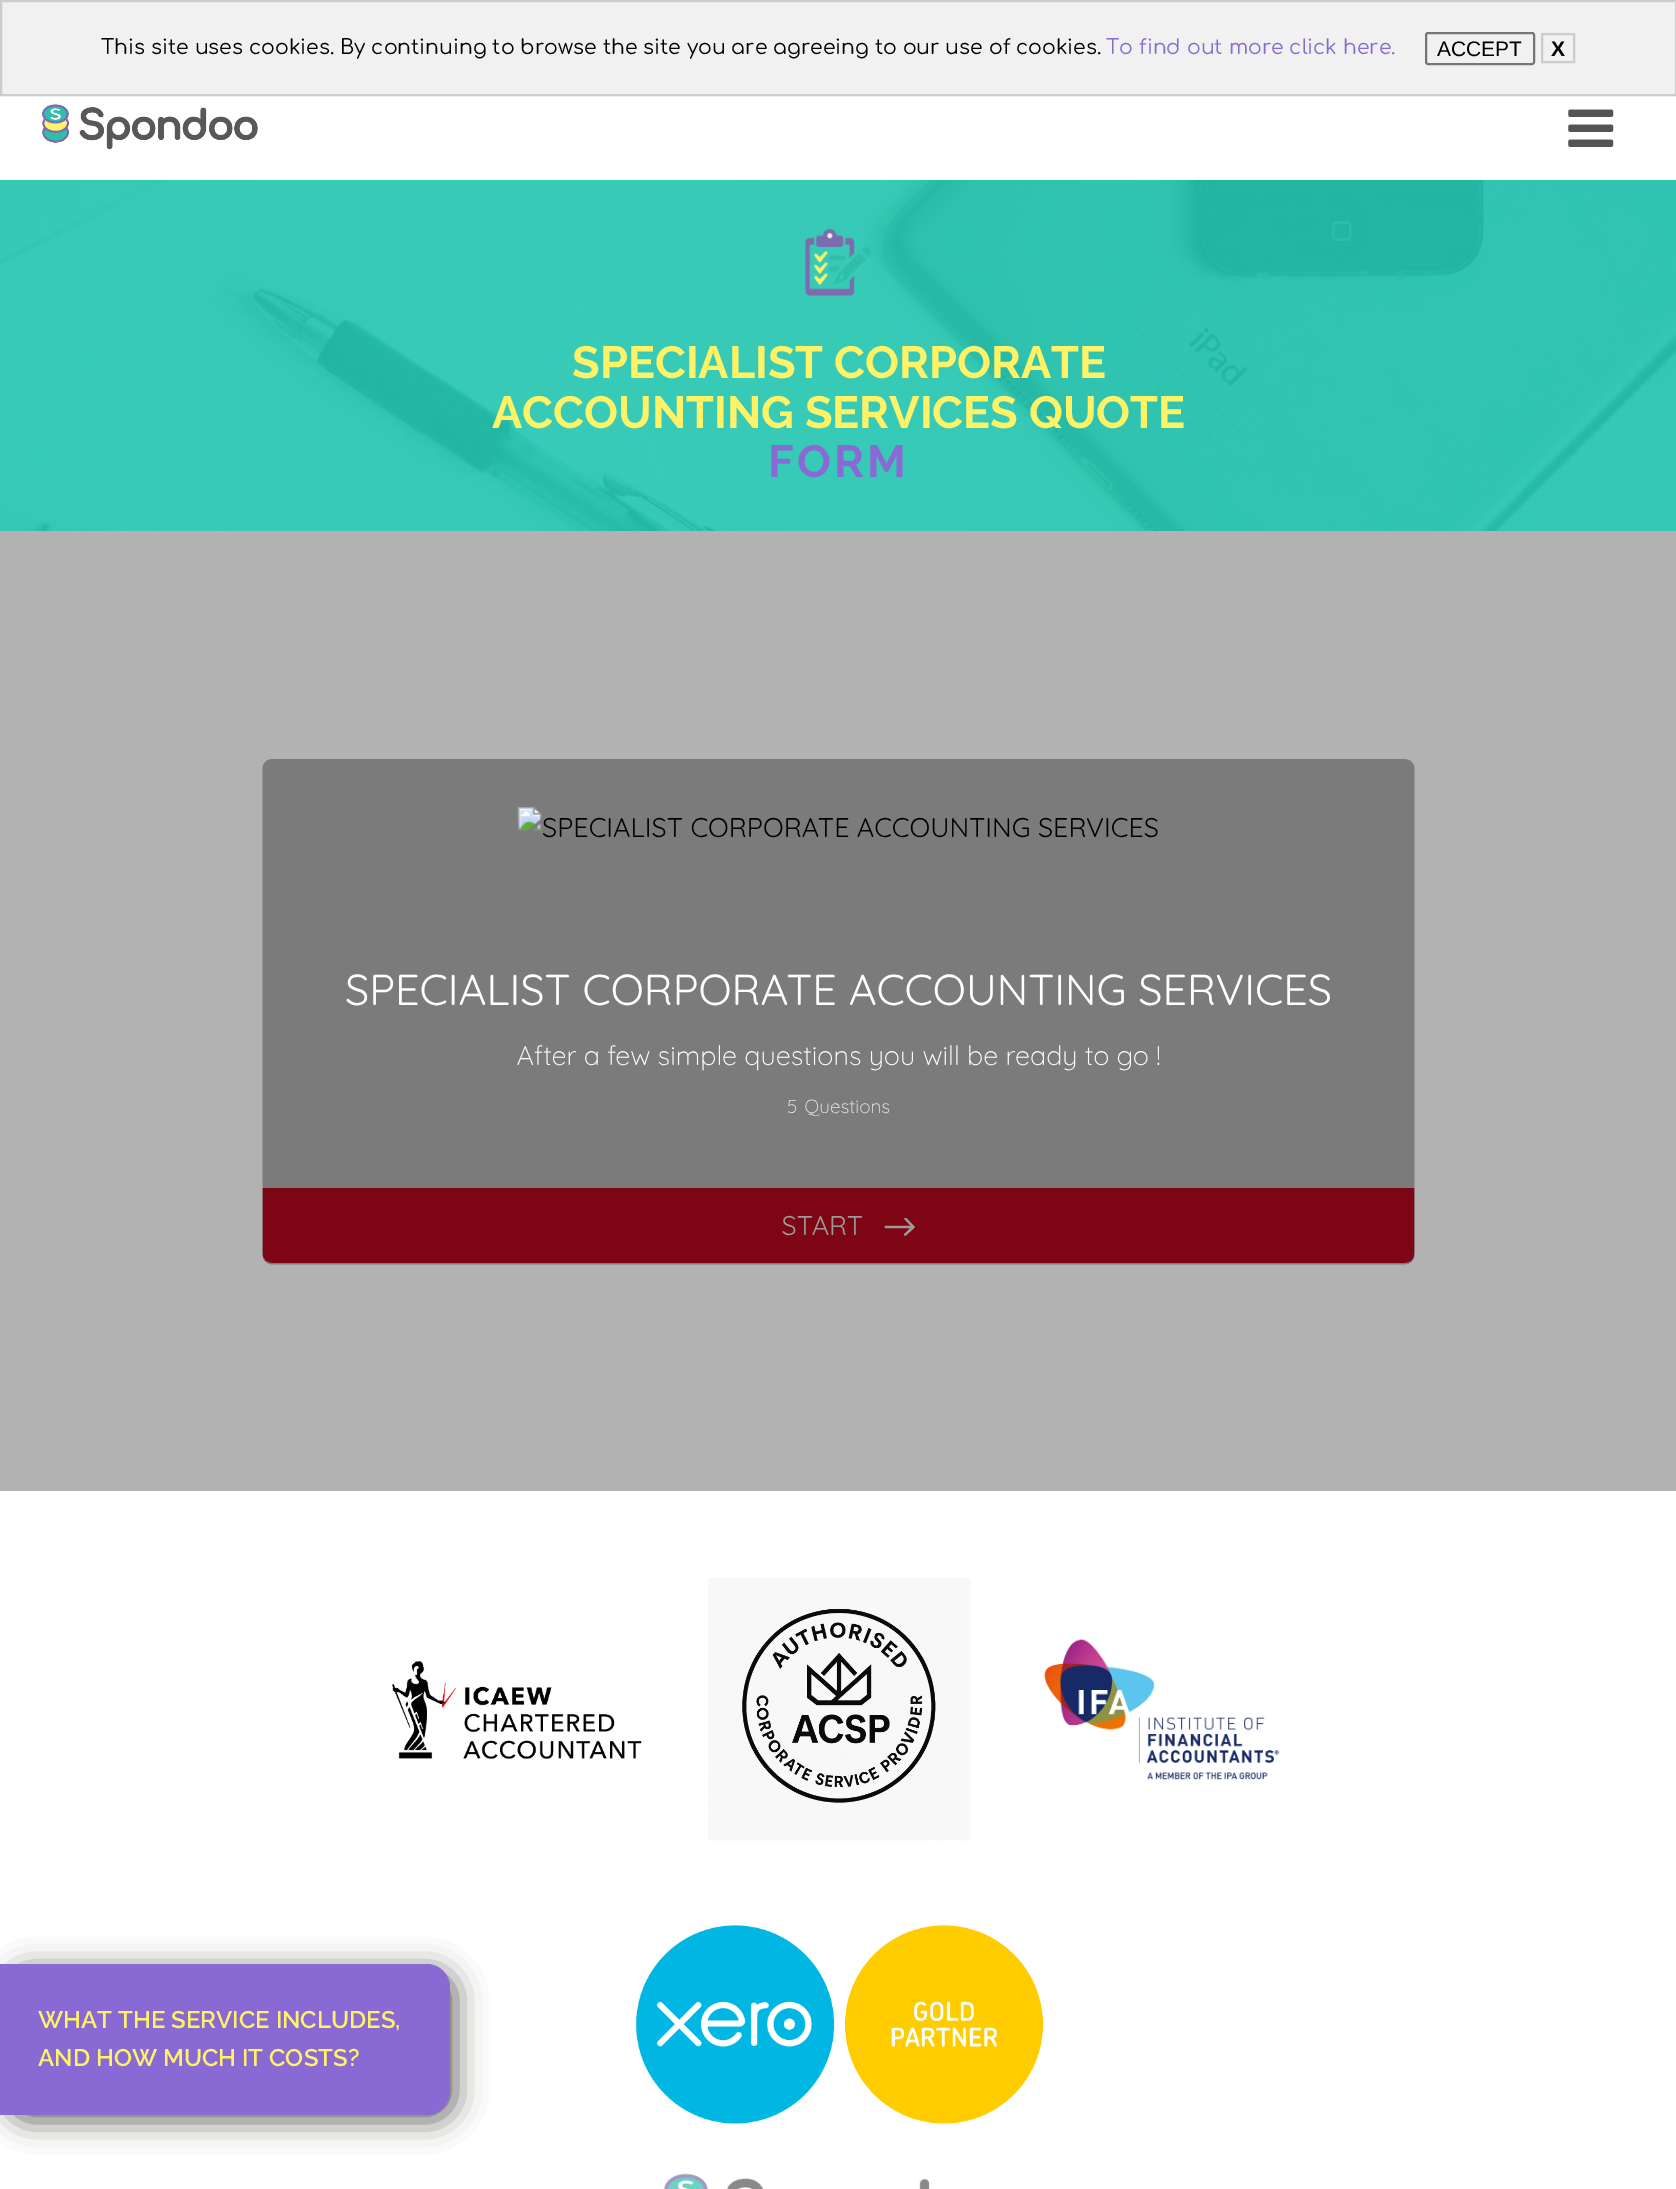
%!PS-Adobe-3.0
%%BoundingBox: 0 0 1676 2189
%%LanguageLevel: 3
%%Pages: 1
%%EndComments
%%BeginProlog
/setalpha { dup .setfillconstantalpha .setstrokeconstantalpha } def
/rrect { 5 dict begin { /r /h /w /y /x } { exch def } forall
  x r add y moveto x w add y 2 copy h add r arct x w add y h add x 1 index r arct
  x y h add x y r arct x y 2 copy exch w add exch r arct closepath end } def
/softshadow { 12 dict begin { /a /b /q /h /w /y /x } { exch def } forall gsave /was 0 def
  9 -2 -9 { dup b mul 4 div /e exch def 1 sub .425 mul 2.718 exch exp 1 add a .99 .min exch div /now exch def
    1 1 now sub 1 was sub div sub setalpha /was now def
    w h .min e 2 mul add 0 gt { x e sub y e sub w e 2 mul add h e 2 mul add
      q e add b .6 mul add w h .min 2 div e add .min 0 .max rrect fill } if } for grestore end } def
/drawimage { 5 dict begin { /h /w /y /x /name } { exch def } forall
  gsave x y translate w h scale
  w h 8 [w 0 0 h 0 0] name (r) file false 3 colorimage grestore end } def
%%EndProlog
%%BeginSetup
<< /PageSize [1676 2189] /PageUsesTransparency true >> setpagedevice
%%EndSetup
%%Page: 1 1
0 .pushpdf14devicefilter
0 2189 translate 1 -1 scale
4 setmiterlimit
1 setgray
0 0 1676 2189 rectfill
0.945 setgray
newpath 1 1 moveto 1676 1 lineto 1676 95 lineto 1 95 lineto closepath gsave fill grestore
0.8 setgray
2 setlinewidth
stroke
0.463 setgray
1426 33 108 31 2 rrect stroke
0.8 setgray
1542 34 32 28 rectstroke
(images/1.raw) 42 104 216 46 drawimage
(images/2.raw) 1568 109 46 38 drawimage
(images/3.raw) 0 180 1676 351 drawimage
(images/4.raw) 804 228 68 69 drawimage
(images/5.raw) 0 531 1676 960 drawimage
0.169 0.173 0.157 setrgbcolor
6 1970 450 151 23 15 0.73 softshadow
0.537 0.412 0.827 setrgbcolor
newpath 0 1964 moveto 427 1964 lineto 439.5 1964 450 1974.5 450 1987 curveto 450 2092 lineto 450 2104.5 439.5 2115 427 2115 curveto 0 2115 lineto closepath fill
(images/6.raw) 392 1661 250 98 drawimage
(images/7.raw) 708 1578 263 263 drawimage
(images/8.raw) 1044 1639 236 141 drawimage
(images/9.raw) 635 1925 409 199 drawimage
(images/10.raw) 664 2173 266 16 drawimage
/Comfortaa-Regular [20.4 0 0 -20.4 0 0] selectfont
0 setgray
101 54 moveto (This site uses cookies. By continuing to browse the site you are agreeing to our use of cookies.) show
0.537 0.412 0.827 setrgbcolor
1106 54 moveto (To find out more click here.) show
/LiberationSans-Regular [21 0 0 -21 0 0] selectfont
0 setgray
1437 56 moveto (ACCEPT) show
/LiberationSans-Bold [21 0 0 -21 0 0] selectfont
1551 56 moveto (X) show
/Raleway-Bold [45 0 0 -45 0 0] selectfont
1 0.949 0.4 setrgbcolor
572 378 moveto (SPECIALIST CORPORATE) show
492 428 moveto (ACCOUNTING SERVICES QUOTE) show
0.537 0.412 0.827 setrgbcolor
768 477 moveto 3 0 (FORM) ashow
/Raleway-SemiBold [24 0 0 -24 0 0] selectfont
1 0.949 0.4 setrgbcolor
38 2028 moveto (WHAT THE SERVICE INCLUDES,) show
38 2066 moveto (AND HOW MUCH IT COSTS?) show
.poppdf14devicefilter showpage
%%EOF
